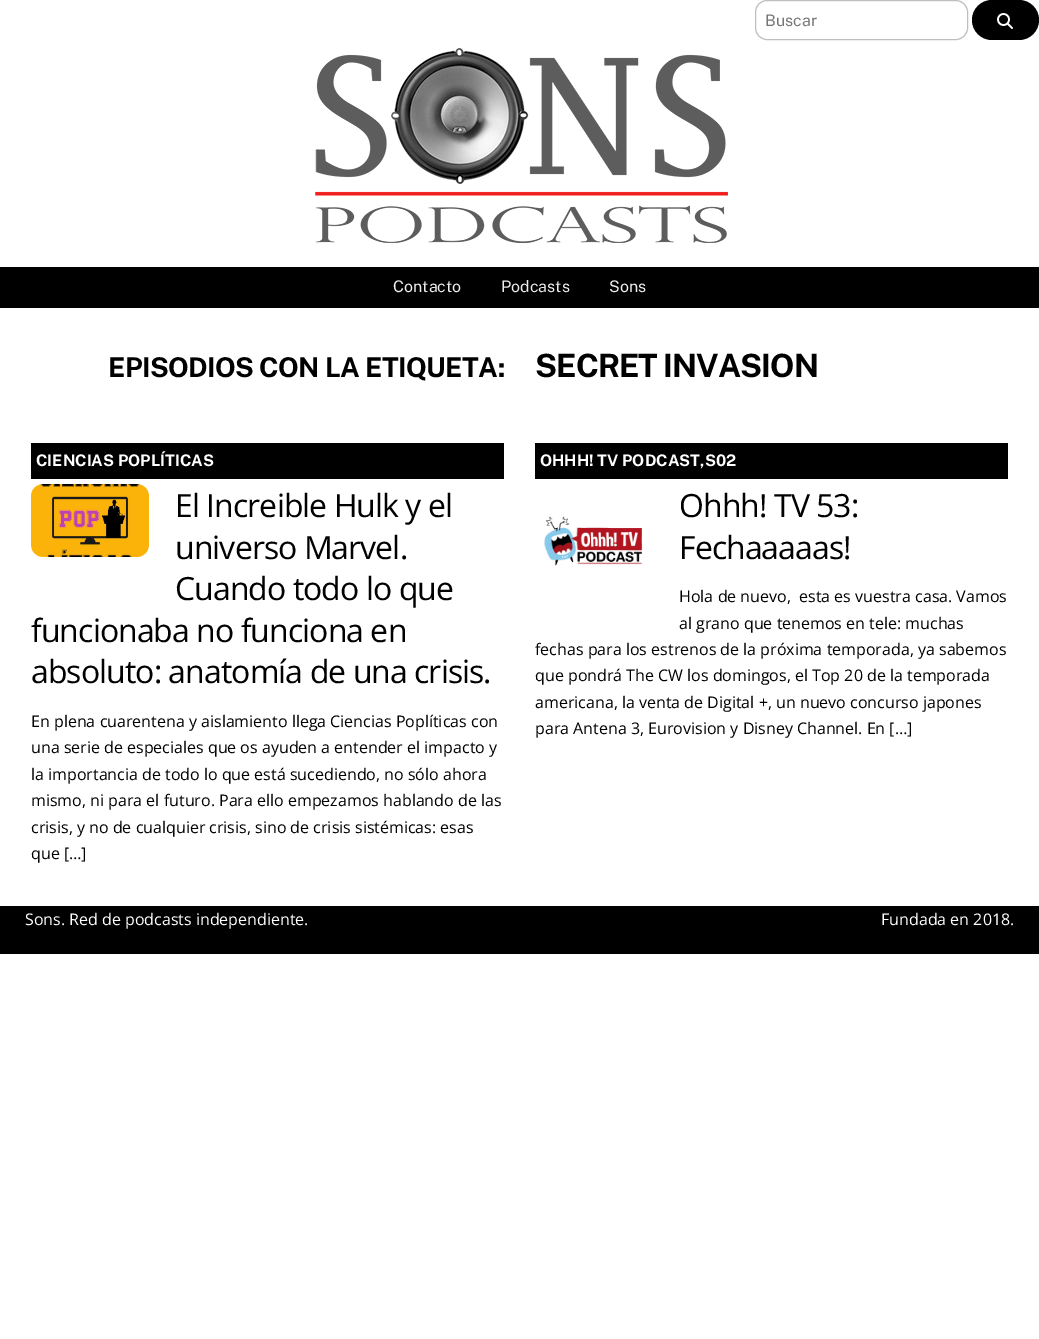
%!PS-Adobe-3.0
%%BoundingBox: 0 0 1039 1339
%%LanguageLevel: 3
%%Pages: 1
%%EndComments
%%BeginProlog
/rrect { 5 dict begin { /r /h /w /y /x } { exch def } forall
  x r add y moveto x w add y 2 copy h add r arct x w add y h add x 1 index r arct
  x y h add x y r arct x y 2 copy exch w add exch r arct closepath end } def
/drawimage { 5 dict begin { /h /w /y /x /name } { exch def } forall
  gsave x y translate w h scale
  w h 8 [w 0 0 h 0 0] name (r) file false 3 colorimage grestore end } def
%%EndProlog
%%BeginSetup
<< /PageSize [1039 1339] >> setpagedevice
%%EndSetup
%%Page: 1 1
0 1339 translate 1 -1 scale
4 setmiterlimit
1 setgray
0 0 1039 1339 rectfill
0.749 setgray
755.5 0.5 212 39 11.5 rrect stroke
0 setgray
972 0 67 40 20 rrect fill
(images/1.raw) 997 13 16 16 drawimage
(images/2.raw) 315 48 413 195 drawimage
0 267 1039 41 rectfill
31 443 473 36 rectfill
(images/3.raw) 31 484 118 73 drawimage
535 443 473 36 rectfill
(images/4.raw) 544 516 98 50 drawimage
0 906 1039 48 rectfill
/PublicSans-Regular [16 0 0 -16 0 0] selectfont
0.459 setgray
765 26 moveto (Buscar) show
0.933 setgray
393 292 moveto (Contacto) show
501 292 moveto (Podcasts) show
609 292 moveto (Sons) show
/PublicSans-Bold [27.25 0 0 -27.25 0 0] selectfont
0 setgray
108 377 moveto -0.55 0 (EPISODIOS CON LA ETIQUETA:) ashow
/PublicSans-Bold [32 0 0 -32 0 0] selectfont
535 377 moveto -0.95 0 (SECRET INVASION) ashow
/PublicSans-Bold [16 0 0 -16 0 0] selectfont
1 setgray
36 466 moveto (CIENCIAS POPLÍTICAS) show
/OpenSans-Regular [32 0 0 -32 0 0] selectfont
0 setgray
175 517 moveto -0.95 0 (El Increible Hulk y el) ashow
175 559 moveto -0.95 0 (universo Marvel.) ashow
175 600 moveto -0.95 0 (Cuando todo lo que) ashow
31 642 moveto -0.95 0 (funcionaba no funciona en) ashow
31 683 moveto -0.95 0 (absoluto: anatomía de una crisis.) ashow
/OpenSans-Regular [16 0 0 -16 0 0] selectfont
31 727 moveto (En plena cuarentena y aislamiento llega Ciencias Poplíticas con) show
31 753 moveto (una serie de especiales que os ayuden a entender el impacto y) show
31 780 moveto (la importancia de todo lo que está sucediendo, no sólo ahora) show
31 806 moveto (mismo, ni para el futuro. Para ello empezamos hablando de las) show
31 833 moveto (crisis, y no de cualquier crisis, sino de crisis sistémicas: esas) show
31 859 moveto (que […]) show
/PublicSans-Bold [16 0 0 -16 0 0] selectfont
1 setgray
540 466 moveto (OHHH! TV PODCAST,S02) show
/OpenSans-Regular [32 0 0 -32 0 0] selectfont
0 setgray
679 517 moveto -0.95 0 (Ohhh! TV 53:) ashow
679 559 moveto -0.95 0 (Fechaaaaas!) ashow
/OpenSans-Regular [16 0 0 -16 0 0] selectfont
679 602 moveto (Hola de nuevo,  esta es vuestra casa. Vamos) show
679 629 moveto (al grano que tenemos en tele: muchas) show
535 655 moveto (fechas para los estrenos de la próxima temporada, ya sabemos) show
535 681 moveto (que pondrá The CW los domingos, el Top 20 de la temporada) show
535 708 moveto (americana, la venta de Digital +, un nuevo concurso japones) show
535 734 moveto (para Antena 3, Eurovision y Disney Channel. En […]) show
1 setgray
25 925 moveto (Sons. Red de podcasts independiente.) show
881 925 moveto (Fundada en 2018.) show
showpage
%%EOF
